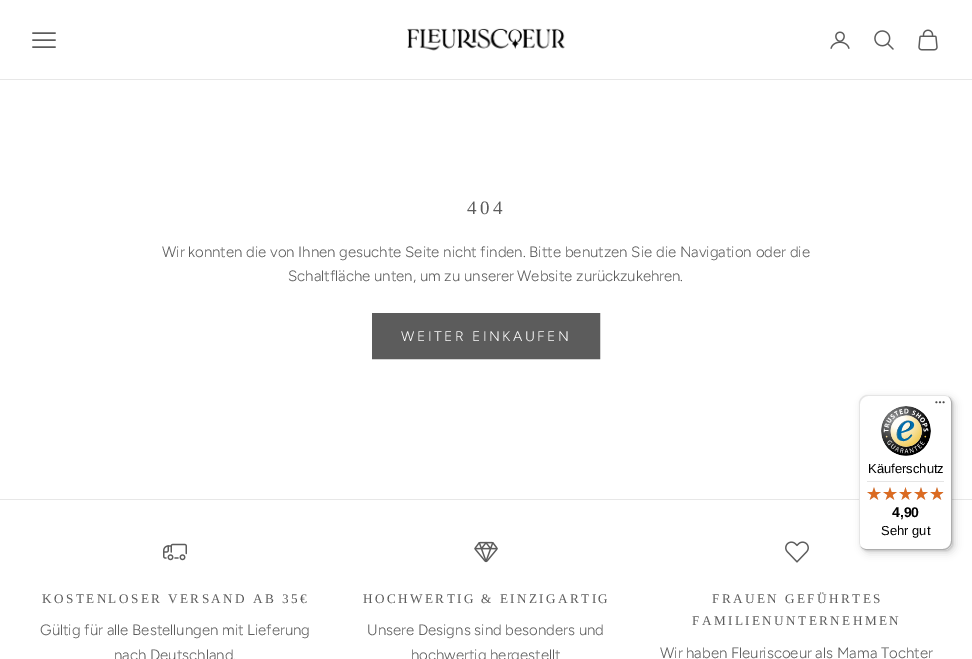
%!PS-Adobe-3.0
%%BoundingBox: 0 0 972 659
%%LanguageLevel: 3
%%Pages: 1
%%EndComments
%%BeginProlog
/setalpha { dup .setfillconstantalpha .setstrokeconstantalpha } def
/rrect { 5 dict begin { /r /h /w /y /x } { exch def } forall
  x r add y moveto x w add y 2 copy h add r arct x w add y h add x 1 index r arct
  x y h add x y r arct x y 2 copy exch w add exch r arct closepath end } def
/softshadow { 12 dict begin { /a /b /q /h /w /y /x } { exch def } forall gsave /was 0 def
  9 -2 -9 { dup b mul 4 div /e exch def 1 sub .425 mul 2.718 exch exp 1 add a .99 .min exch div /now exch def
    1 1 now sub 1 was sub div sub setalpha /was now def
    w h .min e 2 mul add 0 gt { x e sub y e sub w e 2 mul add h e 2 mul add
      q e add b .6 mul add w h .min 2 div e add .min 0 .max rrect fill } if } for grestore end } def
/drawimage { 5 dict begin { /h /w /y /x /name } { exch def } forall
  gsave x y translate w h scale
  w h 8 [w 0 0 h 0 0] name (r) file false 3 colorimage grestore end } def
%%EndProlog
%%BeginSetup
<< /PageSize [972 659] /PageUsesTransparency true >> setpagedevice
%%EndSetup
%%Page: 1 1
0 .pushpdf14devicefilter
0 659 translate 1 -1 scale
4 setmiterlimit
1 setgray
0 0 972 659 rectfill
0.906 setgray
0 79 972 1 rectfill
0.361 setgray
1.5 setlinewidth
2 setlinecap
newpath 33 47 moveto 55 47 lineto 33 40 moveto 55 40 lineto 33 33 moveto 55 33 lineto stroke
(images/1.raw) 407 28 158 23 drawimage
(images/2.raw) 830 31 20 18 drawimage
(images/3.raw) 874 30 20 20 drawimage
(images/4.raw) 918 29 20 22 drawimage
newpath 372.5 313.5 moveto 599.5 313.5 lineto 599.5 358.5 lineto 372.5 358.5 lineto closepath gsave fill grestore
1 setlinewidth
0 setlinecap
stroke
0.906 setgray
0 499 972 1 rectfill
(images/5.raw) 163 543 24 18 drawimage
(images/6.raw) 474 541 24 22 drawimage
(images/7.raw) 785 541 24 22 drawimage
0 setgray
862 398 93 155 8 4 0.15 softshadow
860 396 93 155 8 1 0.15 softshadow
1 setgray
859 395 93 155 8 rrect fill
0.898 setgray
newpath 868 396 moveto 945 396 lineto 947 396 949 397 951 399 curveto 949 397 947 395 944 395 curveto 867 395 lineto 863 395 859 399 859 403 curveto 859 542 lineto 859 545 861 547 863 549 curveto 861 547 860 545 860 543 curveto 860 404 lineto 860 400 864 396 868 396 curveto closepath fill
0.8 setgray
newpath 860 546 moveto 862 548 864 550 867 550 curveto 944 550 lineto 948 550 952 546 952 542 curveto 952 403 lineto 952 400 950 398 948 396 curveto 950 398 951 400 951 402 curveto 951 541 lineto 951 545 947 549 943 549 curveto 866 549 lineto 864 549 862 548 860 546 curveto closepath fill
0.2 setalpha
0.196 setgray
newpath 861 547 moveto 862 549 865 550 867 550 curveto 944 550 lineto 948 550 952 546 952 542 curveto 952 403 lineto 952 401 951 398 949 397 curveto 950 398 951 400 951 402 curveto 951 541 lineto 951 546 948 549 943 549 curveto 866 549 lineto 864 549 862 548 861 547 curveto closepath fill
1 setalpha
(images/8.raw) 935 401 10 3 drawimage
0.3 setalpha
1 setgray
newpath 944 550 moveto 948.5 550 952 546.5 952 542 curveto 952 546 948 550 944 550 curveto closepath fill
1 setalpha
(images/9.raw) 881 406 50 50 drawimage
0.898 setgray
867 481 77 1 rectfill
(images/10.raw) 867 487 14 13 drawimage
(images/10.raw) 883 487 14 13 drawimage
(images/11.raw) 899 487 13 13 drawimage
(images/10.raw) 914 487 14 13 drawimage
(images/10.raw) 930 487 14 13 drawimage
(images/12.raw) 867 487 14 13 drawimage
(images/12.raw) 883 487 14 13 drawimage
(images/13.raw) 899 487 13 13 drawimage
(images/12.raw) 914 487 14 13 drawimage
(images/14.raw) 930 487 13 13 drawimage
/LiberationSerif-Regular [19 0 0 -19 0 0] selectfont
0.361 setgray
467 214 moveto 3.5 0 (404) ashow
/Figtree-Light [15 0 0 -15 0 0] selectfont
162 257 moveto (Wir konnten die von Ihnen gesuchte Seite nicht finden. Bitte benutzen Sie die Navigation oder die) show
288 281 moveto (Schaltfläche unten, um zu unserer Website zurückzukehren.) show
/Figtree-Light [14 0 0 -14 0 0] selectfont
1 setgray
401 341 moveto 2.5 0 (WEITER EINKAUFEN) ashow
/LiberationSerif-Regular [13.2 0 0 -13.2 0 0] selectfont
0.361 setgray
42 603 moveto 2.4 0 (KOSTENLOSER VERSAND AB 35€) ashow
/Figtree-Light [15 0 0 -15 0 0] selectfont
40 635 moveto (Gültig für alle Bestellungen mit Lieferung) show
114 660 moveto (nach Deutschland.) show
/LiberationSerif-Regular [13.2 0 0 -13.2 0 0] selectfont
363 603 moveto 2.4 0 (HOCHWERTIG & EINZIGARTIG) ashow
/Figtree-Light [15 0 0 -15 0 0] selectfont
367 635 moveto (Unsere Designs sind besonders und) show
411 660 moveto (hochwertig hergestellt) show
/LiberationSerif-Regular [13.2 0 0 -13.2 0 0] selectfont
712 603 moveto 2.4 0 (FRAUEN GEFÜHRTES) ashow
692 625 moveto 2.4 0 (FAMILIENUNTERNEHMEN) ashow
/Figtree-Light [15 0 0 -15 0 0] selectfont
660 658 moveto (Wir haben Fleuriscoeur als Mama Tochter) show
/LiberationSans-Regular [13 0 0 -13 0 0] selectfont
0 setgray
868 473 moveto (Käuferschutz) show
/LiberationSans-Bold [14 0 0 -14 0 0] selectfont
892 517 moveto (4,90) show
/LiberationSans-Regular [13 0 0 -13 0 0] selectfont
881 535 moveto (Sehr gut) show
.poppdf14devicefilter showpage
%%EOF
